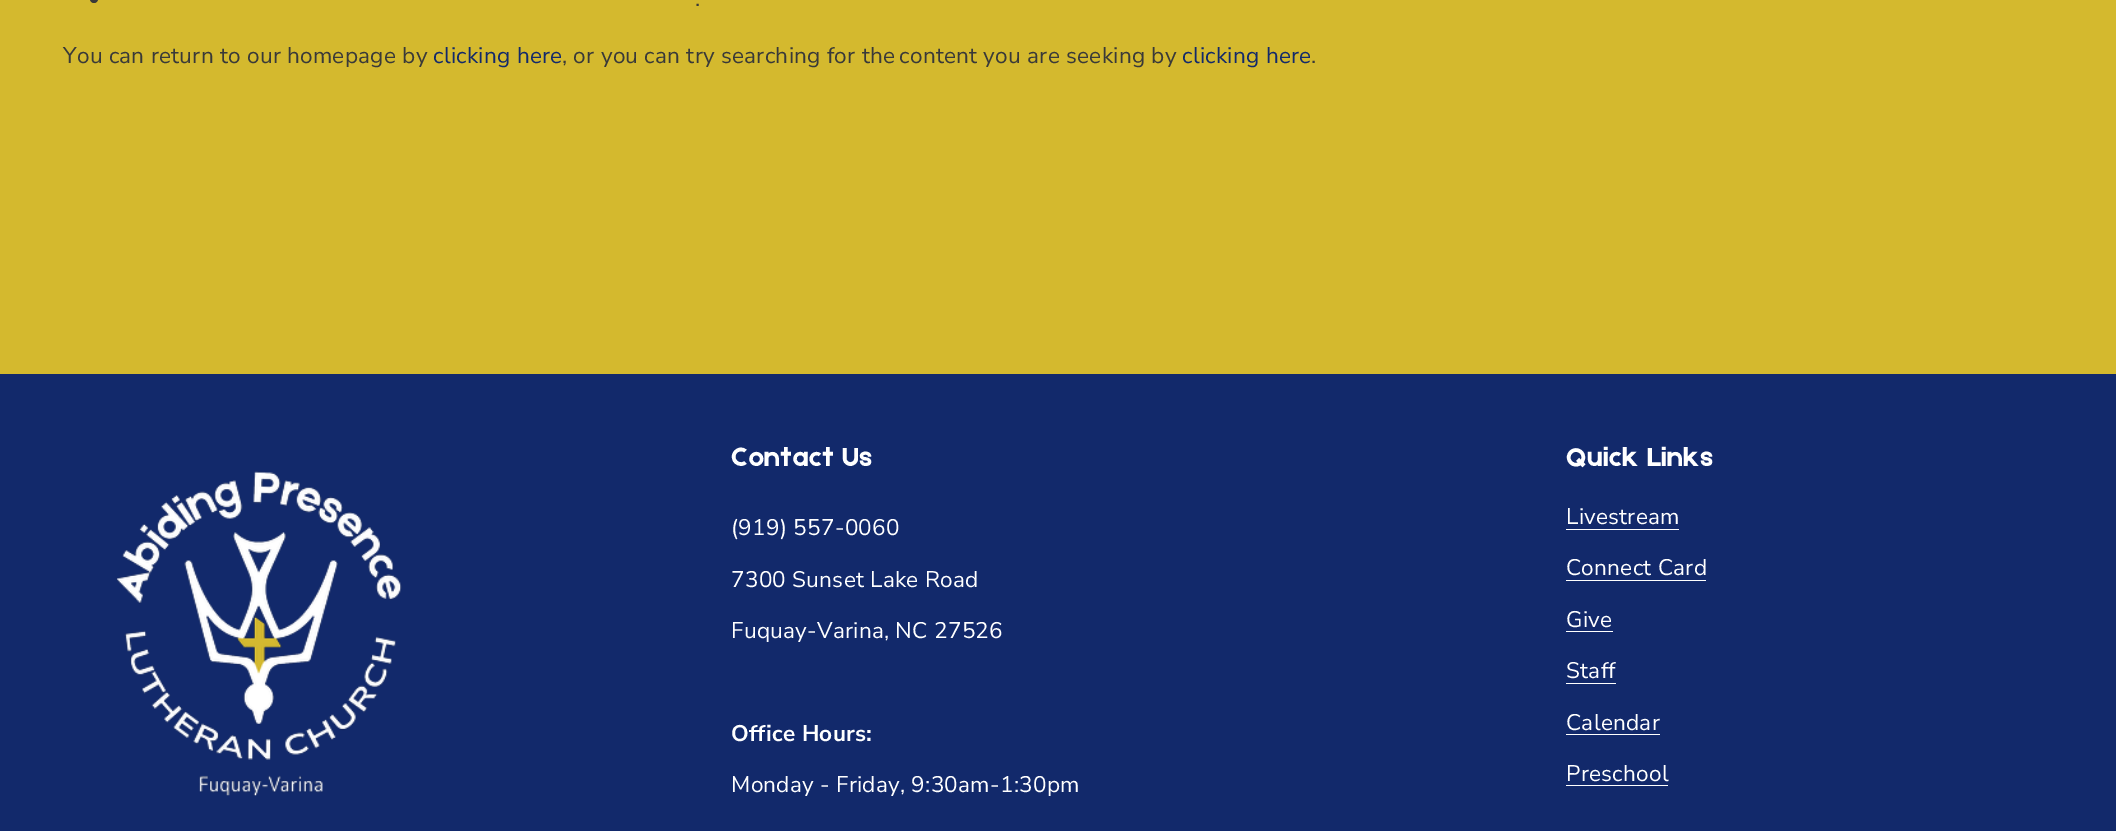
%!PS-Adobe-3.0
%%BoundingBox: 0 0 2116 831
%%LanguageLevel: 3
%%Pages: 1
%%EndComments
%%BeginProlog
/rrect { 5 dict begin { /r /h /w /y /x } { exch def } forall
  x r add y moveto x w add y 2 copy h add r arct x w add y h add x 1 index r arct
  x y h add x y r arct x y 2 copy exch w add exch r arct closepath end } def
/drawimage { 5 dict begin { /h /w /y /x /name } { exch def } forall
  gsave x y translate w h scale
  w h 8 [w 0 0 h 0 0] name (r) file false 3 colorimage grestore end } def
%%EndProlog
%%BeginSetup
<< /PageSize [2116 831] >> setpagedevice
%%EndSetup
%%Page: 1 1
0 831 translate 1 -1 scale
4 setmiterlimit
0.831 0.725 0.18 setrgbcolor
0 0 2116 831 rectfill
0.224 setgray
90 -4 8 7 4 rrect fill
0.071 0.161 0.42 setrgbcolor
0 374 2116 457 rectfill
(images/1.raw) 116 471 286 325 drawimage
1 setgray
1566 529 113 1 rectfill
1566 580 140 1 rectfill
1566 631 47 1 rectfill
1566 683 50 1 rectfill
1566 734 94 1 rectfill
1566 785 102 1 rectfill
/NunitoSans-Regular [22.6 0 0 -22.6 0 0] selectfont
0.224 setgray
695 6 moveto 0.25 0 (.) ashow
63 63 moveto 0.25 0 (You can return to our homepage by) ashow
0.071 0.161 0.42 setrgbcolor
433 63 moveto 0.25 0 (clicking here) ashow
0.224 setgray
562 63 moveto 0.25 0 (, or you can try searching for the) ashow
899 63 moveto 0.25 0 (content you are seeking by) ashow
0.071 0.161 0.42 setrgbcolor
1182 63 moveto 0.25 0 (clicking here) ashow
0.224 setgray
1311 63 moveto 0.25 0 (.) ashow
/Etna-Regular [27.5 0 0 -27.5 0 0] selectfont
1 setgray
731 466 moveto 0.5 0 (Contact Us) ashow
/NunitoSans-Regular [22.6 0 0 -22.6 0 0] selectfont
731 535 moveto 0.25 0 (\(919\) 557-0060) ashow
731 587 moveto 0.25 0 (7300 Sunset Lake Road) ashow
731 638 moveto 0.25 0 (Fuquay-Varina, NC 27526) ashow
/NunitoSans-Bold [22.6 0 0 -22.6 0 0] selectfont
731 741 moveto 0.25 0 (Office Hours:) ashow
/NunitoSans-Regular [22.6 0 0 -22.6 0 0] selectfont
731 792 moveto 0.25 0 (Monday - Friday, 9:30am-1:30pm) ashow
/Etna-Regular [27.5 0 0 -27.5 0 0] selectfont
1566 466 moveto 0.5 0 (Quick Links) ashow
/NunitoSans-Regular [22.6 0 0 -22.6 0 0] selectfont
1566 524 moveto 0.25 0 (Livestream) ashow
1566 575 moveto 0.25 0 (Connect Card) ashow
1566 627 moveto 0.25 0 (Give) ashow
1566 678 moveto 0.25 0 (Staff) ashow
1566 730 moveto 0.25 0 (Calendar) ashow
1566 781 moveto 0.25 0 (Preschool) ashow
showpage
%%EOF
